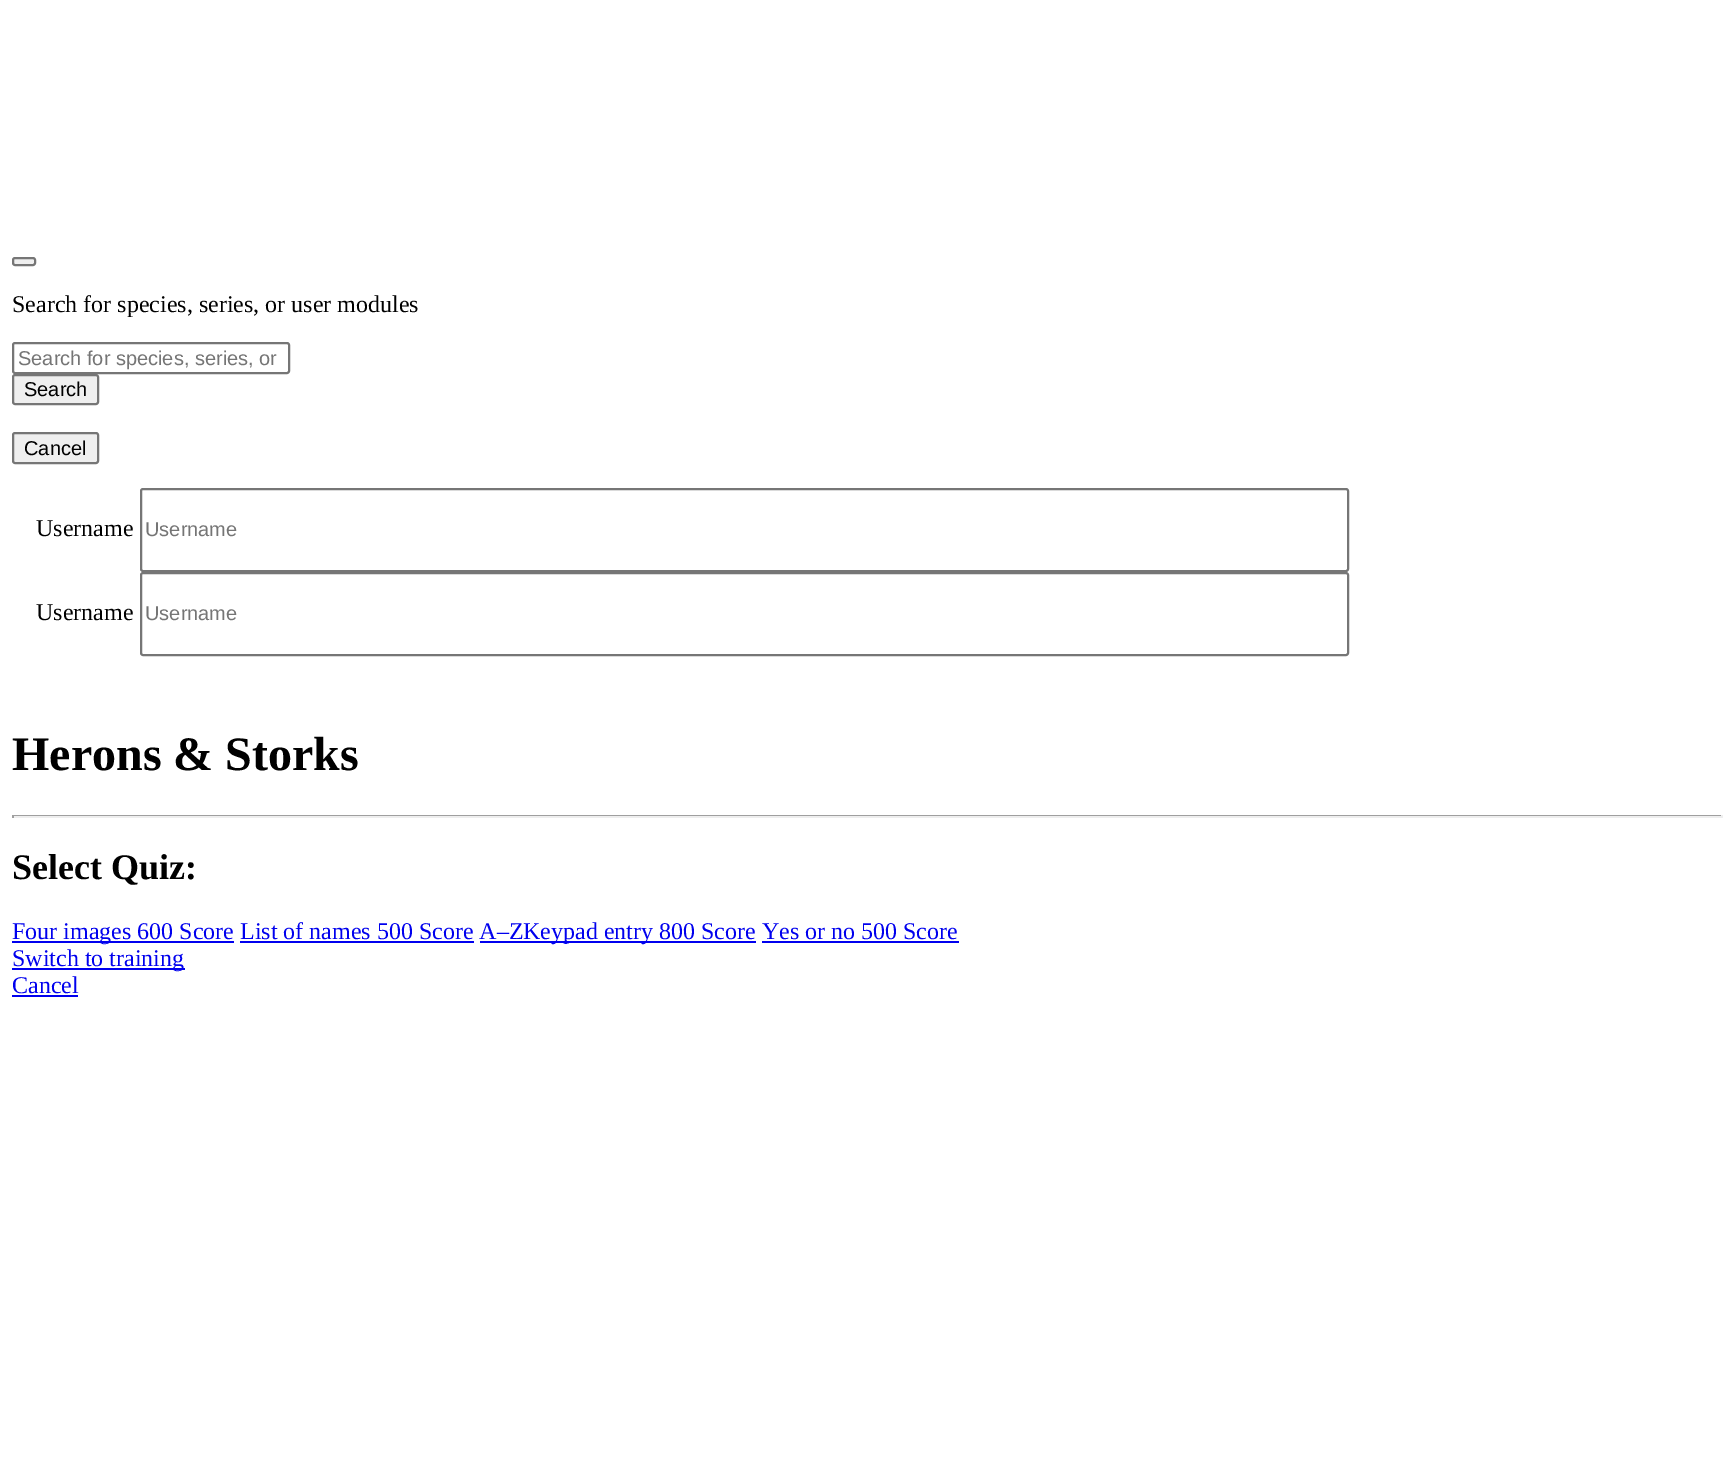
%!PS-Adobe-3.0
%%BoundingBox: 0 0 1733 1462
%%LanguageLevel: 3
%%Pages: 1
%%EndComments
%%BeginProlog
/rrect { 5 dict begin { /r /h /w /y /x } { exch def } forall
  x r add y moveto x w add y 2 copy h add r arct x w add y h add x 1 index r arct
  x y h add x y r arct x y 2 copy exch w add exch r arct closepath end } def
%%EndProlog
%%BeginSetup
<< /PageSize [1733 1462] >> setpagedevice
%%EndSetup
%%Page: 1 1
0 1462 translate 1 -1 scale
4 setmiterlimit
1 setgray
0 0 1733 1462 rectfill
0.937 setgray
13 258 22 7 2 rrect gsave fill grestore
0.463 setgray
2 setlinewidth
stroke
13 343 276 30 2 rrect stroke
0.937 setgray
13 375 85 29 2 rrect gsave fill grestore
0.463 setgray
stroke
0.937 setgray
13 433 85 30 2 rrect gsave fill grestore
0.463 setgray
stroke
141 489 1207 82 2 rrect stroke
141 573 1207 82 2 rrect stroke
0.624 setgray
12 815 1710 1 rectfill
0.933 setgray
1721 815 2 3 rectfill
12 816 1710 2 rectfill
0.624 setgray
12 815 2 3 rectfill
0 0 0.933 setrgbcolor
12 941 222 2 rectfill
480 941 276 2 rectfill
240 941 234 2 rectfill
762 941 197 2 rectfill
12 968 173 2 rectfill
12 995 66 2 rectfill
/LiberationSerif-Regular [24 0 0 -24 0 0] selectfont
0 setgray
12 312 moveto (Search for species, series, or user modules) show
/LiberationSans-Regular [20 0 0 -20 0 0] selectfont
0.459 setgray
18 365 moveto (Search for species, series, or) show
0 setgray
24 396 moveto (Search) show
24 455 moveto (Cancel) show
/LiberationSerif-Regular [24 0 0 -24 0 0] selectfont
36 536 moveto (Username) show
/LiberationSans-Regular [20 0 0 -20 0 0] selectfont
0.459 setgray
145 536 moveto (Username) show
/LiberationSerif-Regular [24 0 0 -24 0 0] selectfont
0 setgray
36 620 moveto (Username) show
/LiberationSans-Regular [20 0 0 -20 0 0] selectfont
0.459 setgray
145 620 moveto (Username) show
/LiberationSerif-Bold [48 0 0 -48 0 0] selectfont
0 setgray
12 770 moveto (Herons & Storks) show
/LiberationSerif-Bold [36 0 0 -36 0 0] selectfont
12 879 moveto (Select Quiz:) show
/LiberationSerif-Regular [24 0 0 -24 0 0] selectfont
0 0 0.933 setrgbcolor
12 939 moveto (Four images 600 Score List of names 500 Score A–Z) show
523 939 moveto (Keypad entry 800 Score Yes or no 500 Score) show
12 966 moveto (Switch to training) show
12 993 moveto (Cancel) show
showpage
%%EOF
